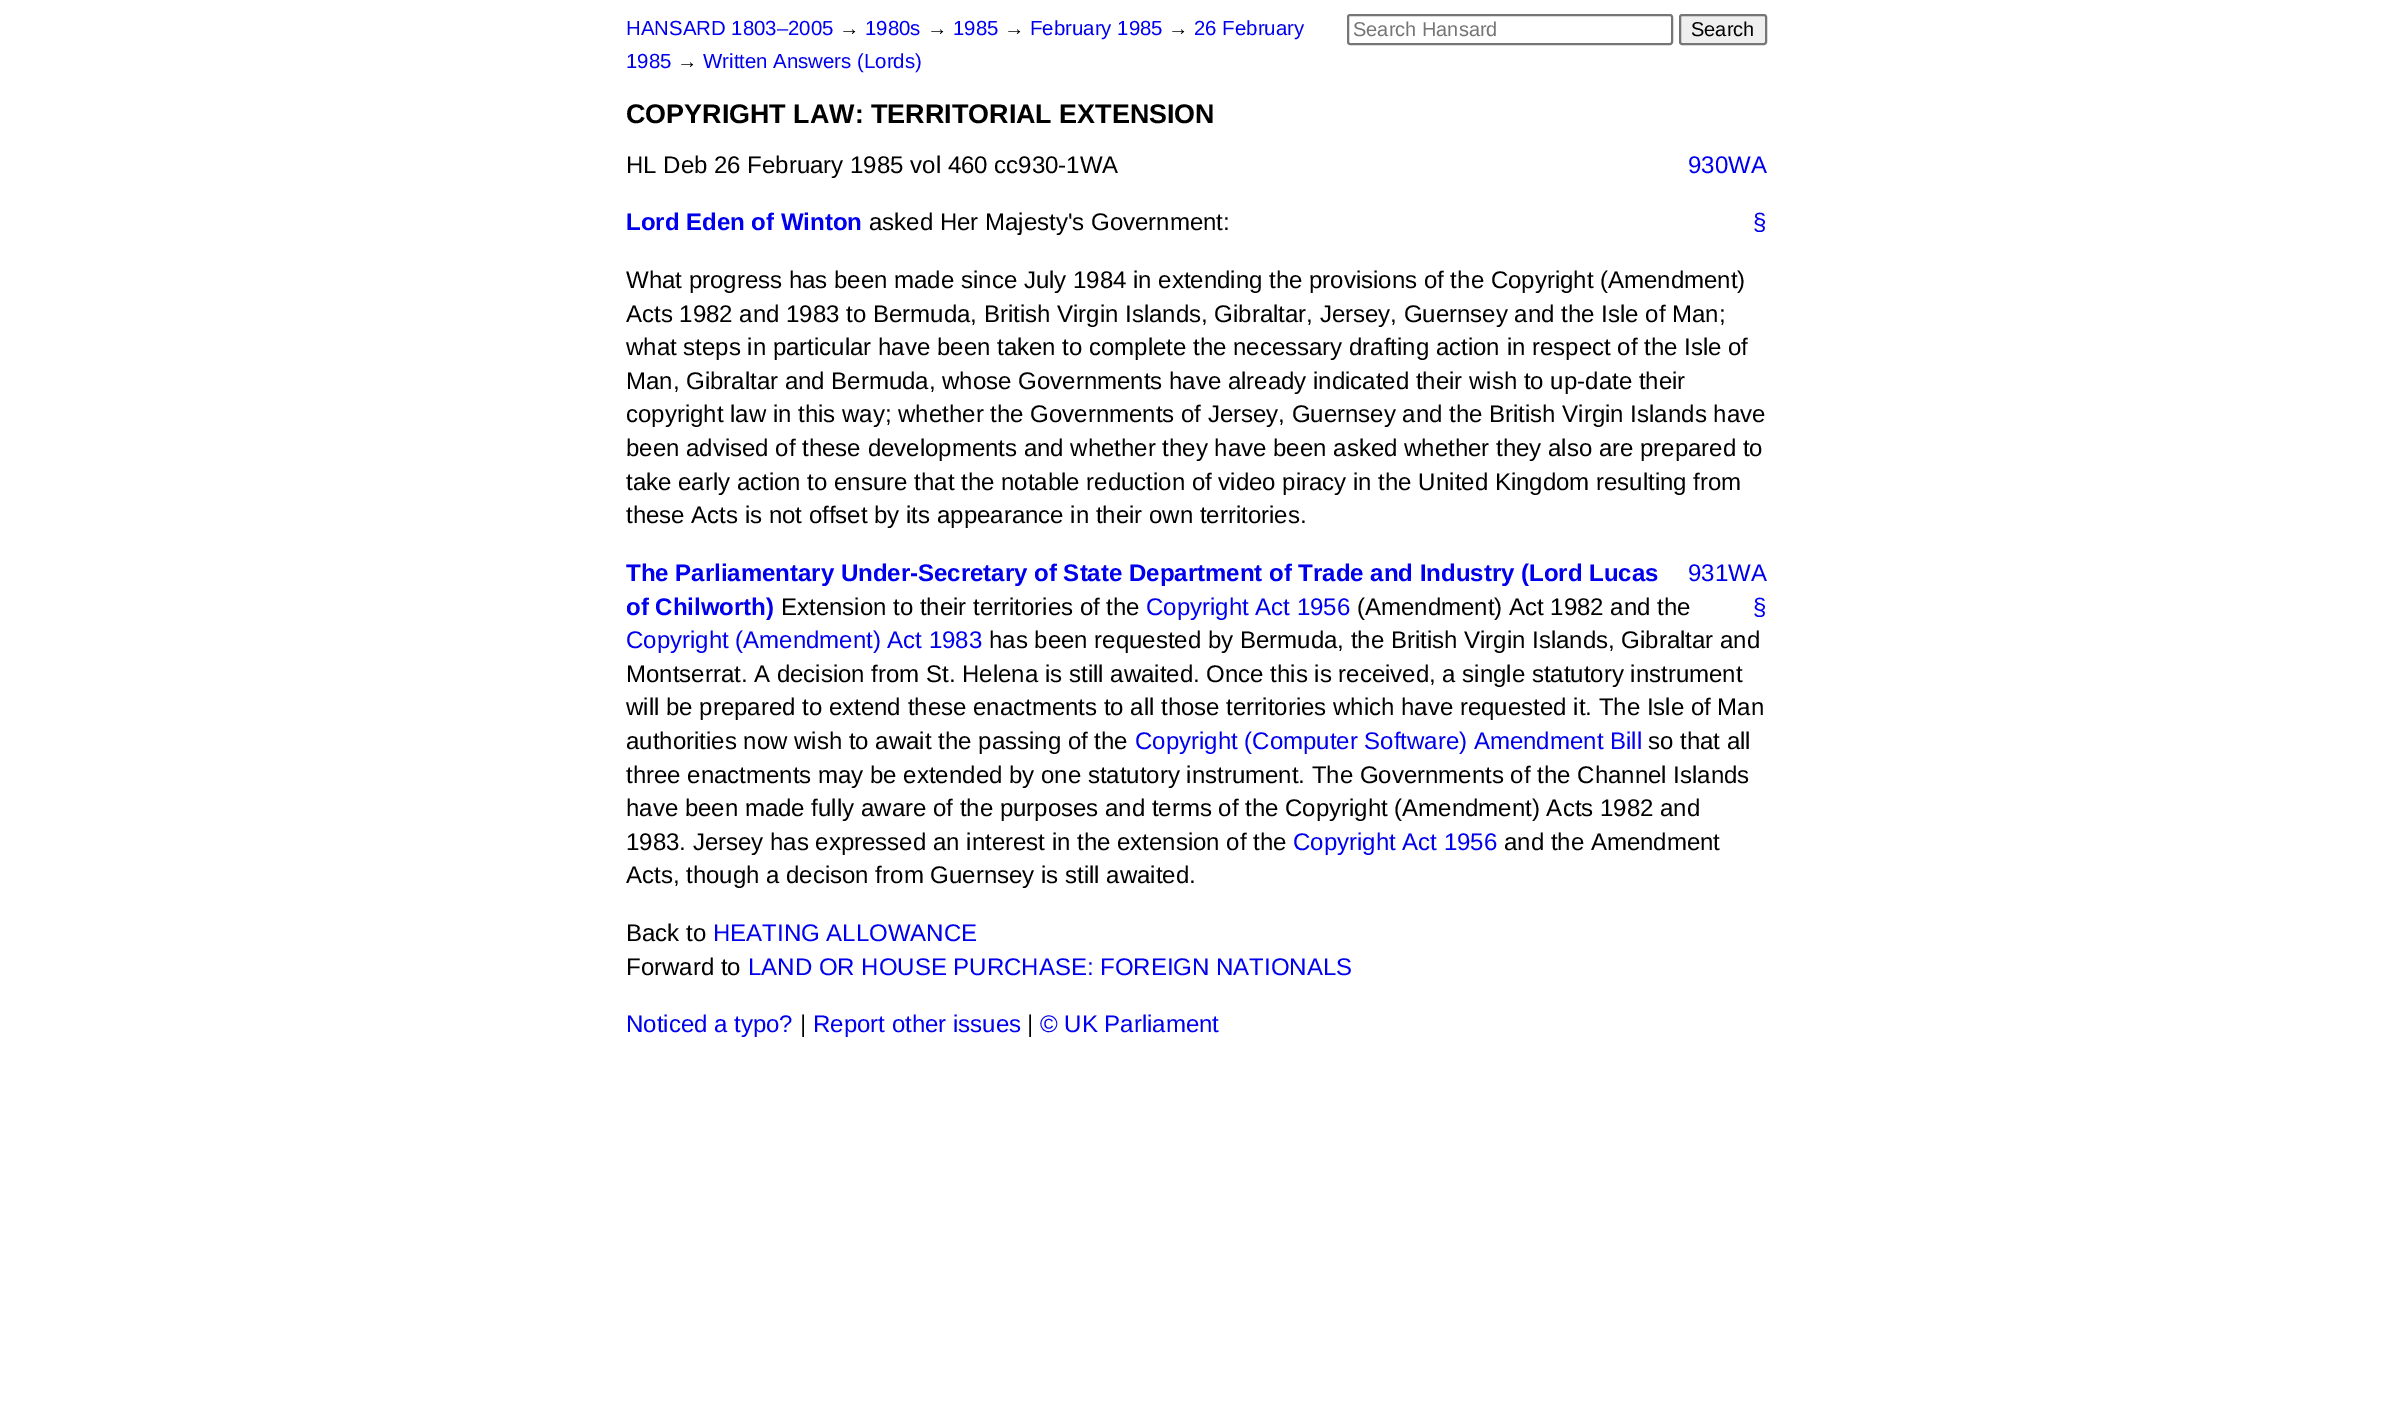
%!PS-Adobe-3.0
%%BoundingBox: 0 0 2392 1416
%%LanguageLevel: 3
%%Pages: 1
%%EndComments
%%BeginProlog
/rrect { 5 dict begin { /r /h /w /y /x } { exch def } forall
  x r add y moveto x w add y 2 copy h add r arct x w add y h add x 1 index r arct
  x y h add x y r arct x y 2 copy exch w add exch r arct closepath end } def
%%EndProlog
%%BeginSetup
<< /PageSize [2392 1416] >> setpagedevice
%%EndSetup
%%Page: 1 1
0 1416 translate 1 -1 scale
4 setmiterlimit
1 setgray
0 0 2392 1416 rectfill
0.463 setgray
2 setlinewidth
1348 15 324 29 2 rrect stroke
0.937 setgray
1680 15 86 29 2 rrect gsave fill grestore
0.463 setgray
stroke
/LiberationSans-Regular [20.4 0 0 -20.4 0 0] selectfont
0 0 0.933 setrgbcolor
626 35 moveto (HANSARD 1803–2005) show
0 setgray
839 35 moveto (→) show
0 0 0.933 setrgbcolor
865 35 moveto (1980s) show
0 setgray
927 35 moveto (→) show
0 0 0.933 setrgbcolor
953 35 moveto (1985) show
0 setgray
1004 35 moveto (→) show
0 0 0.933 setrgbcolor
1030 35 moveto (February 1985) show
0 setgray
1168 35 moveto (→) show
0 0 0.933 setrgbcolor
1194 35 moveto (26 February) show
626 68 moveto (1985) show
0 setgray
677 68 moveto (→) show
0 0 0.933 setrgbcolor
703 68 moveto (Written Answers \(Lords\)) show
/LiberationSans-Regular [20 0 0 -20 0 0] selectfont
0.459 setgray
1353 36 moveto (Search Hansard) show
0 setgray
1691 36 moveto (Search) show
/LiberationSans-Bold [26.9 0 0 -26.9 0 0] selectfont
626 123 moveto (COPYRIGHT LAW: TERRITORIAL EXTENSION) show
/LiberationSans-Regular [24 0 0 -24 0 0] selectfont
626 173 moveto (HL Deb 26 February 1985 vol 460 cc930-1WA) show
0 0 0.933 setrgbcolor
1688 173 moveto (930WA) show
/LiberationSans-Bold [24 0 0 -24 0 0] selectfont
626 230 moveto (Lord Eden of Winton) show
/LiberationSans-Regular [24 0 0 -24 0 0] selectfont
0 setgray
869 230 moveto (asked Her Majesty's Government:) show
0 0 0.933 setrgbcolor
1753 230 moveto (§) show
0 setgray
626 288 moveto (What progress has been made since July 1984 in extending the provisions of the Copyright \(Amendment\)) show
626 322 moveto (Acts 1982 and 1983 to Bermuda, British Virgin Islands, Gibraltar, Jersey, Guernsey and the Isle of Man;) show
626 355 moveto (what steps in particular have been taken to complete the necessary drafting action in respect of the Isle of) show
626 389 moveto (Man, Gibraltar and Bermuda, whose Governments have already indicated their wish to up-date their) show
626 422 moveto (copyright law in this way; whether the Governments of Jersey, Guernsey and the British Virgin Islands have) show
626 456 moveto (been advised of these developments and whether they have been asked whether they also are prepared to) show
626 490 moveto (take early action to ensure that the notable reduction of video piracy in the United Kingdom resulting from) show
626 523 moveto (these Acts is not offset by its appearance in their own territories.) show
0 0 0.933 setrgbcolor
1688 581 moveto (931WA) show
/LiberationSans-Bold [24 0 0 -24 0 0] selectfont
626 581 moveto (The Parliamentary Under-Secretary of State Department of Trade and Industry \(Lord Lucas) show
626 615 moveto (of Chilworth\)) show
/LiberationSans-Regular [24 0 0 -24 0 0] selectfont
0 setgray
781 615 moveto (Extension to their territories of the) show
0 0 0.933 setrgbcolor
1146 615 moveto (Copyright Act 1956) show
0 setgray
1357 615 moveto (\(Amendment\) Act 1982 and the) show
0 0 0.933 setrgbcolor
1753 615 moveto (§) show
626 648 moveto (Copyright \(Amendment\) Act 1983) show
0 setgray
989 648 moveto (has been requested by Bermuda, the British Virgin Islands, Gibraltar and) show
626 682 moveto (Montserrat. A decision from St. Helena is still awaited. Once this is received, a single statutory instrument) show
626 715 moveto (will be prepared to extend these enactments to all those territories which have requested it. The Isle of Man) show
626 749 moveto (authorities now wish to await the passing of the) show
0 0 0.933 setrgbcolor
1135 749 moveto (Copyright \(Computer Software\) Amendment Bill) show
0 setgray
1648 749 moveto (so that all) show
626 783 moveto (three enactments may be extended by one statutory instrument. The Governments of the Channel Islands) show
626 816 moveto (have been made fully aware of the purposes and terms of the Copyright \(Amendment\) Acts 1982 and) show
626 850 moveto (1983. Jersey has expressed an interest in the extension of the) show
0 0 0.933 setrgbcolor
1293 850 moveto (Copyright Act 1956) show
0 setgray
1504 850 moveto (and the Amendment) show
626 883 moveto (Acts, though a decison from Guernsey is still awaited.) show
626 941 moveto (Back to) show
0 0 0.933 setrgbcolor
713 941 moveto (HEATING ALLOWANCE) show
0 setgray
626 975 moveto (Forward to) show
0 0 0.933 setrgbcolor
748 975 moveto (LAND OR HOUSE PURCHASE: FOREIGN NATIONALS) show
626 1032 moveto (Noticed a typo?) show
0 setgray
800 1032 moveto (|) show
0 0 0.933 setrgbcolor
813 1032 moveto (Report other issues) show
0 setgray
1027 1032 moveto (|) show
0 0 0.933 setrgbcolor
1040 1032 moveto (© UK Parliament) show
showpage
%%EOF
